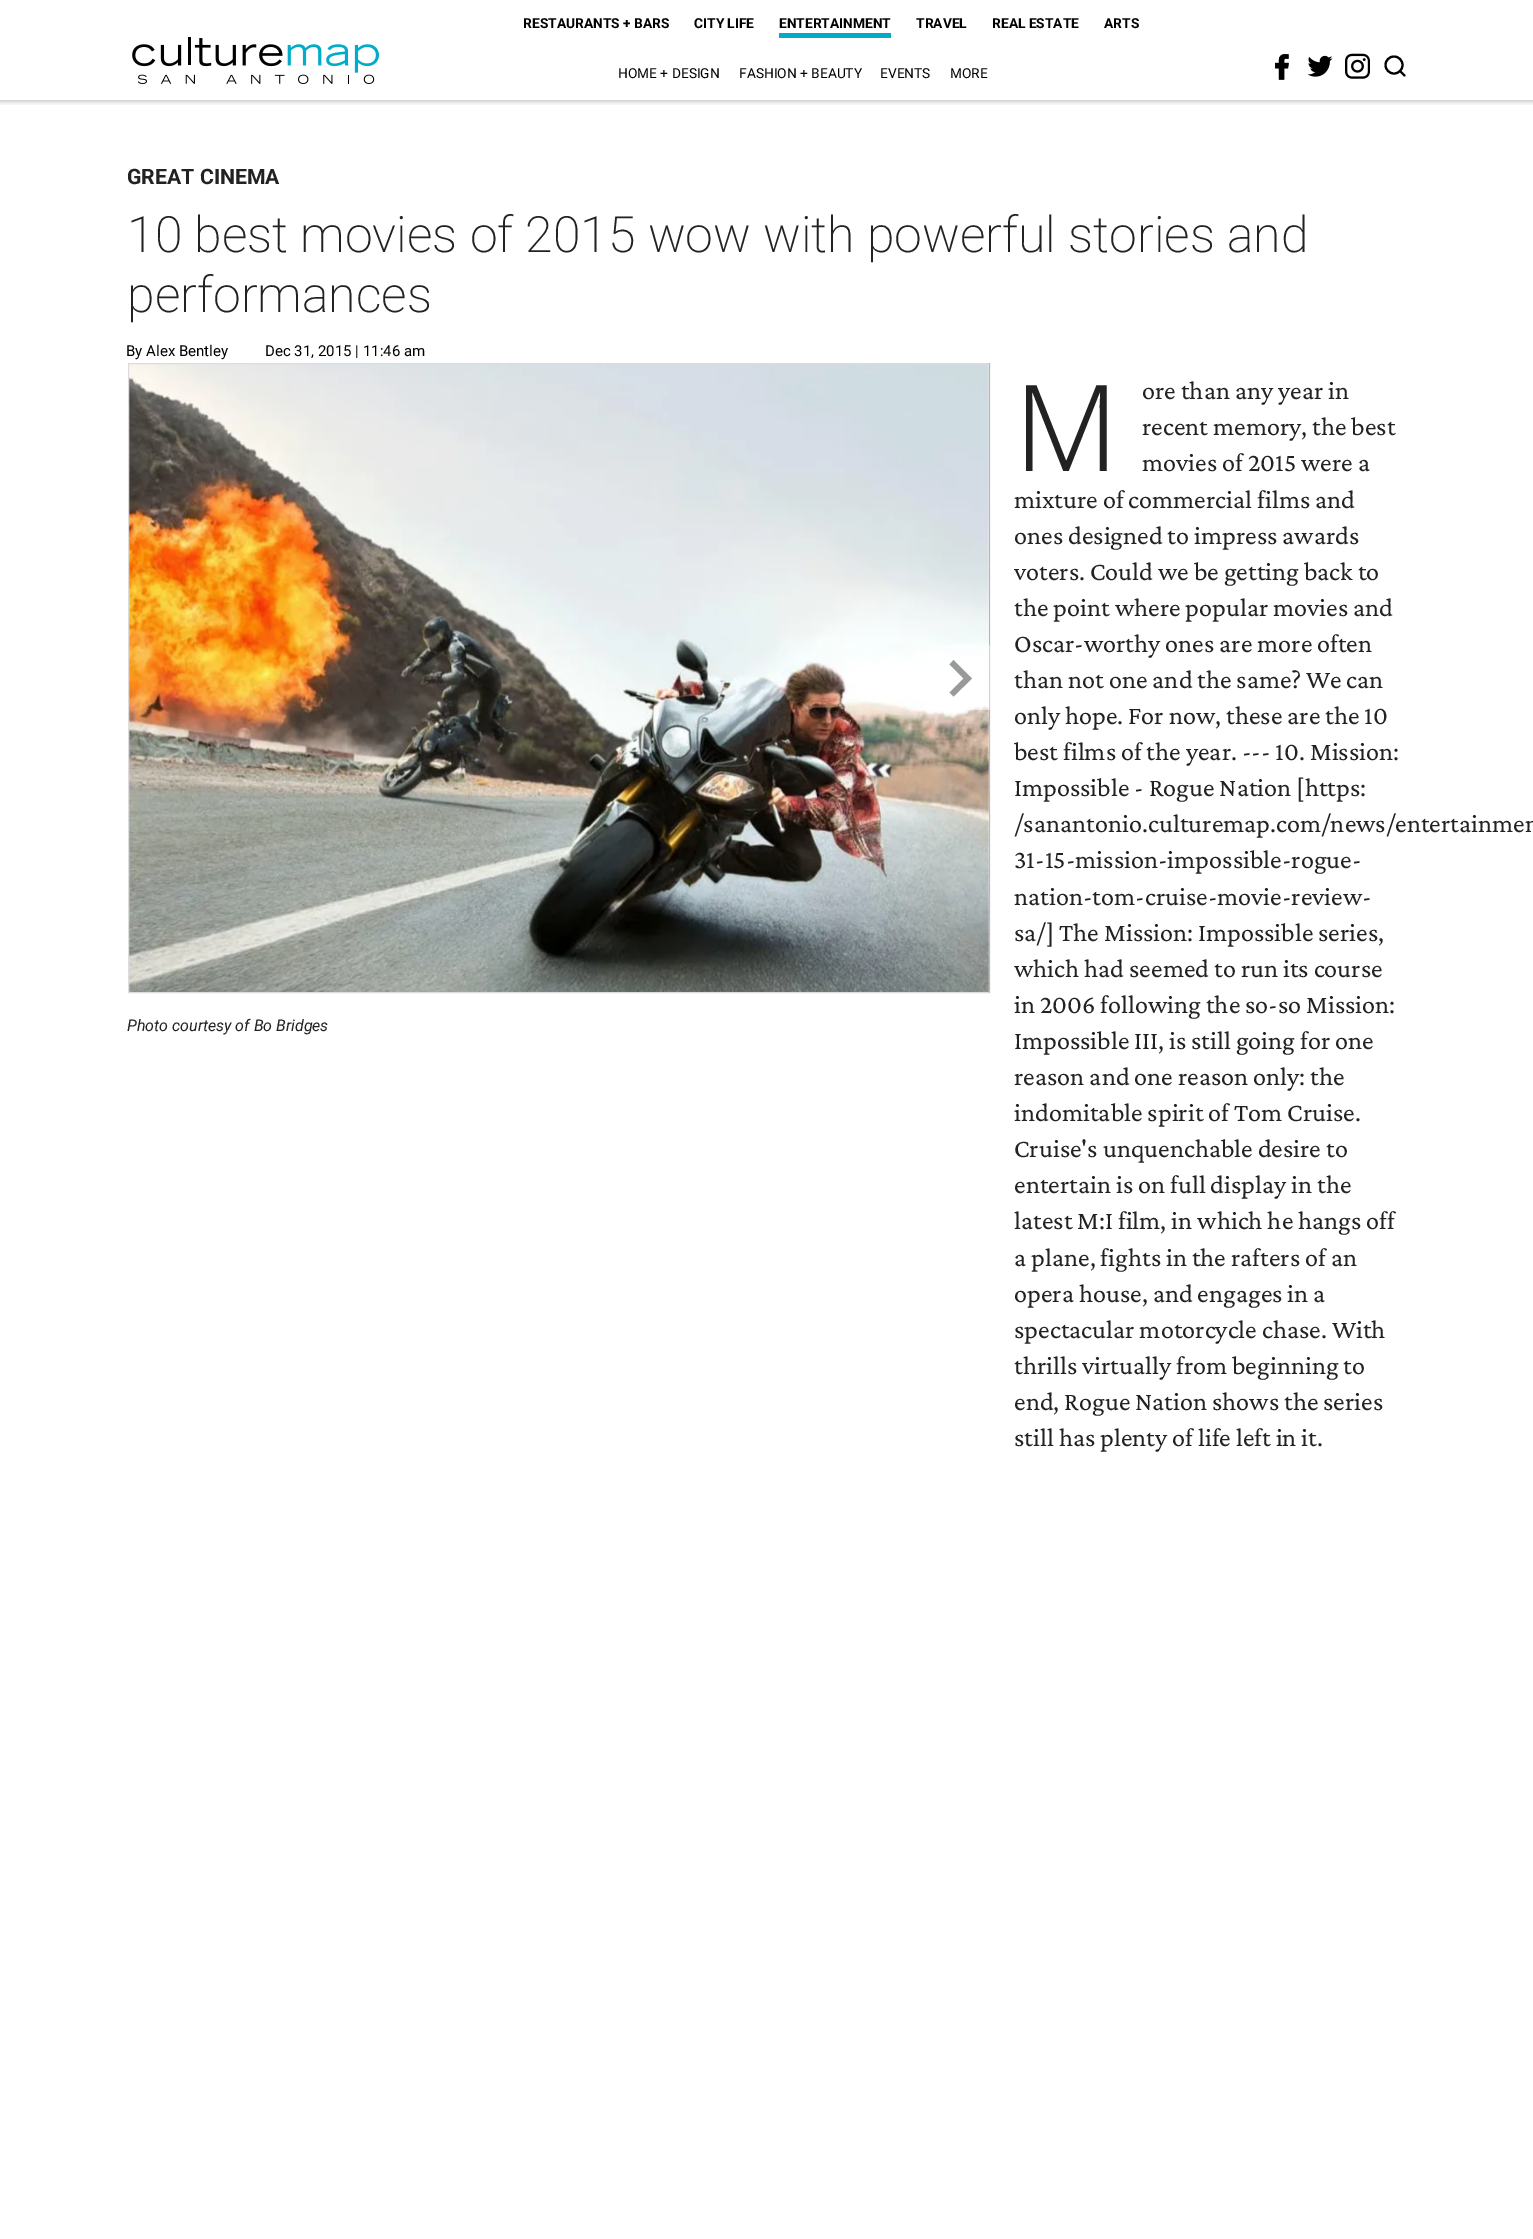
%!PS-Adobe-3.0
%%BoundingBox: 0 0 1533 2239
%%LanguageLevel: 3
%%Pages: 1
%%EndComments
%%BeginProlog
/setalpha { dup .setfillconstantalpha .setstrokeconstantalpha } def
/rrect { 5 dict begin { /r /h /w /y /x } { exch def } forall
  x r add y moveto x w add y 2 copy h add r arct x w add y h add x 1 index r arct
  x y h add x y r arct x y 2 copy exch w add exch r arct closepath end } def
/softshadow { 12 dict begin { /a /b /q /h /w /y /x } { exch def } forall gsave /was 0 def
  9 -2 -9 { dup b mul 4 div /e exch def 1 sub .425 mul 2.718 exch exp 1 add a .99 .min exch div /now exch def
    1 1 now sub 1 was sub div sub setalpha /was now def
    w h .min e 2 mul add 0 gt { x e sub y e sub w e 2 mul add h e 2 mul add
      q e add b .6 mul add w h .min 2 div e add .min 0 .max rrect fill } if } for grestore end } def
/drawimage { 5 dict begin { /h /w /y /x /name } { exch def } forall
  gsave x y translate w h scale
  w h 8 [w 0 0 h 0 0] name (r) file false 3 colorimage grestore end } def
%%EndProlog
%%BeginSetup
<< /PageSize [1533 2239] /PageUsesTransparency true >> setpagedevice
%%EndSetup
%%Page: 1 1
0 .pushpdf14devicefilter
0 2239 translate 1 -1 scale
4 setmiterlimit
1 setgray
0 0 1533 2239 rectfill
gsave
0 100 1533 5 rectclip
0 setgray
-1 -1 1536 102 0 3 0.28 softshadow
grestore
(images/1.raw) 132 37 247 47 drawimage
0.008 0.671 0.784 setrgbcolor
779 33 112 5 rectfill
(images/2.raw) 1275 54 14 26 drawimage
(images/3.raw) 1308 55 25 22 drawimage
(images/4.raw) 1345 53 25 26 drawimage
0 setgray
2.1 setlinewidth
newpath 1394 65 8.5 0 360 arc closepath stroke
1 setlinecap
1 setlinejoin
newpath 1404.5 75.5 moveto 1400 71 lineto stroke
(images/5.raw) 129 364 860 628 drawimage
0.863 setgray
1 setlinewidth
0 setlinecap
0 setlinejoin
128.5 363.5 861 629 rectstroke
(images/6.raw) 989 363 1 630 drawimage
0.4 setalpha
1 setgray
925 645 65 65 rectfill
1 setalpha
0.6 setgray
newpath 953.5 660 moveto 949.5 664.5 lineto 963.5 678.5 lineto 949.5 692.5 lineto 953.5 696.5 lineto 972 678.5 lineto closepath fill
/Roboto-Bold [13.75 0 0 -13.75 0 0] selectfont
0 setgray
523 28 moveto (RESTAURANTS + BARS) show
694 28 moveto (CITY LIFE) show
779 28 moveto (ENTERTAINMENT) show
916 28 moveto (TRAVEL) show
992 28 moveto (REAL ESTATE) show
1104 28 moveto (ARTS) show
/Roboto-Regular [13.75 0 0 -13.75 0 0] selectfont
618 78 moveto (HOME + DESIGN) show
739 78 moveto (FASHION + BEAUTY) show
880 78 moveto (EVENTS) show
950 78 moveto (MORE) show
/Roboto-Bold [21.25 0 0 -21.25 0 0] selectfont
0.133 setgray
127 184 moveto (GREAT CINEMA) show
/Roboto-ExtraLight [50 0 0 -50 0 0] selectfont
127 252 moveto (10 best movies of 2015 wow with powerful stories and) show
127 312 moveto (performances) show
/Roboto-Regular [15 0 0 -15 0 0] selectfont
0 setgray
126 356 moveto (By Alex Bentley) show
265 356 moveto (Dec 31, 2015 | 11:46 am) show
/Roboto-Italic [16 0 0 -16 0 0] selectfont
0.133 setgray
127 1031 moveto (Photo courtesy of Bo Bridges) show
/NotoSans-Light [120 0 0 -120 0 0] selectfont
1014 471 moveto (M) show
/CrimsonPro-Regular [26.25 0 0 -26.25 0 0] selectfont
1142 399 moveto (ore than any year in) show
1142 435 moveto (recent memory, the best) show
1142 471 moveto (movies of 2015 were a) show
1014 508 moveto (mixture of commercial films and) show
1014 544 moveto (ones designed to impress awards) show
1014 580 moveto (voters. Could we be getting back to) show
1014 616 moveto (the point where popular movies and) show
1014 652 moveto (Oscar-worthy ones are more often) show
1014 688 moveto (than not one and the same? We can) show
1014 724 moveto (only hope. For now, these are the 10) show
1014 760 moveto (best films of the year. --- 10. Mission:) show
1014 796 moveto (Impossible - Rogue Nation [https:) show
1014 832 moveto (/sanantonio.culturemap.com/news/entertainmen) show
1014 868 moveto (31-15-mission-impossible-rogue-) show
1014 905 moveto (nation-tom-cruise-movie-review-) show
1014 941 moveto (sa/] The Mission: Impossible series,) show
1014 977 moveto (which had seemed to run its course) show
1014 1013 moveto (in 2006 following the so-so Mission:) show
1014 1049 moveto (Impossible III, is still going for one) show
1014 1085 moveto (reason and one reason only: the) show
1014 1121 moveto (indomitable spirit of Tom Cruise.) show
1014 1157 moveto (Cruise's unquenchable desire to) show
1014 1193 moveto (entertain is on full display in the) show
1014 1229 moveto (latest M:I film, in which he hangs off) show
1014 1266 moveto (a plane, fights in the rafters of an) show
1014 1302 moveto (opera house, and engages in a) show
1014 1338 moveto (spectacular motorcycle chase. With) show
1014 1374 moveto (thrills virtually from beginning to) show
1014 1410 moveto (end, Rogue Nation shows the series) show
1014 1446 moveto (still has plenty of life left in it.) show
.poppdf14devicefilter showpage
%%EOF
